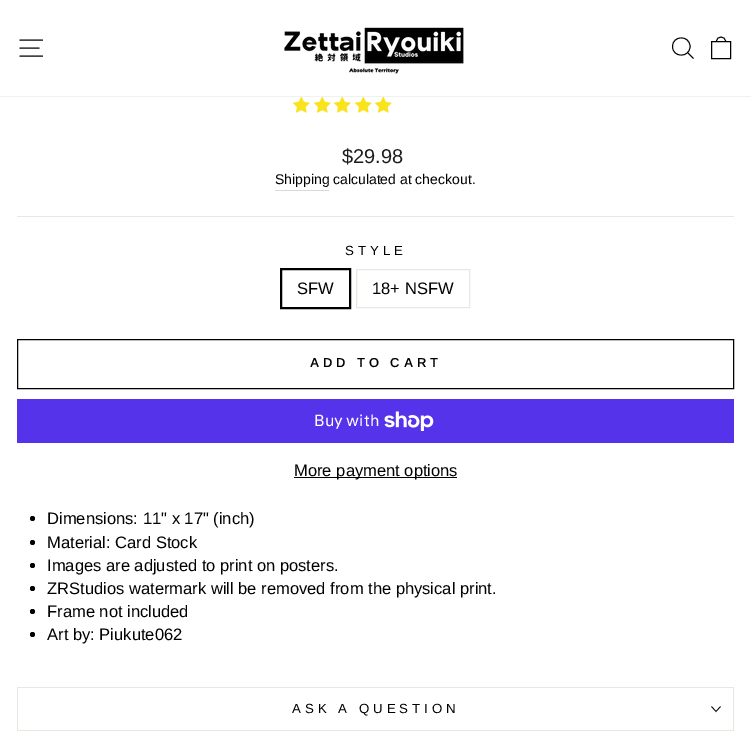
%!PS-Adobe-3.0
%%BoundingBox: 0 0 751 738
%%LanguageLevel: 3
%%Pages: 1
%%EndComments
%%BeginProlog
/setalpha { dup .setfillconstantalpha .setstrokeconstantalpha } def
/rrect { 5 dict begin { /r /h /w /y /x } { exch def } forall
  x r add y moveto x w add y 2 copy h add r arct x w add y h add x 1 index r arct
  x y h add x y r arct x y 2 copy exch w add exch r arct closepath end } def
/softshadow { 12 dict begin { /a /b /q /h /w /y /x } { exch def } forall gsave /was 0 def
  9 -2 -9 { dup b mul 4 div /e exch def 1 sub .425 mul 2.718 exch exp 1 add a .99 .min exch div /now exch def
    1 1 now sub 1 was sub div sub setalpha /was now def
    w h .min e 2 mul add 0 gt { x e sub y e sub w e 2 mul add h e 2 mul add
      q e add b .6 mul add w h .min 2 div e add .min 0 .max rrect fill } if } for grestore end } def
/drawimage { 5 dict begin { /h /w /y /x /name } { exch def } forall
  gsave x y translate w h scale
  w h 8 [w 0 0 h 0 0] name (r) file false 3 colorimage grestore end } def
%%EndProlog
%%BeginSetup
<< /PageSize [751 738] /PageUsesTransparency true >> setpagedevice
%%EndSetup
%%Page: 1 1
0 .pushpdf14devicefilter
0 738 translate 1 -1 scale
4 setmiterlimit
1 setgray
0 0 751 738 rectfill
(images/2.raw) 293 96 17 17 drawimage
(images/2.raw) 314 96 17 17 drawimage
(images/2.raw) 334 96 17 17 drawimage
(images/2.raw) 355 96 17 17 drawimage
(images/2.raw) 375 96 17 17 drawimage
0 setgray
0 0 751 96 0 0.5 0.2 softshadow
1 setgray
0 0 751 96 rectfill
0 setgray
0.9 setlinewidth
newpath 19.5 40 moveto 43 40 lineto 19.5 48 moveto 39.5 48 lineto 19.5 56 moveto 43 56 lineto stroke
(images/1.raw) 284 27 180 47 drawimage
newpath 690 46.5 moveto 690 58 672.5 58 672.5 46.5 curveto 672.5 35 690 35 690 46.5 curveto closepath 693.5 58.5 moveto 687.5 52.5 lineto 711.5 41.5 moveto 730.5 41.5 lineto 730.5 58.5 lineto 711.5 58.5 lineto closepath 716.5 41.5 moveto 716.5 35.5 725.5 35.5 725.5 41.5 curveto stroke
0.851 setgray
275 190 54 1 rectfill
0.91 0.91 0.882 setrgbcolor
17 216 717 1 rectfill
0 setgray
2 setlinewidth
281 269 69 39 rectstroke
0.91 0.91 0.882 setrgbcolor
1 setlinewidth
356.5 269.5 113 38 rectstroke
0 setgray
17.5 339.5 716 49 rectstroke
0.329 0.2 0.922 setrgbcolor
17 399 717 44 rectfill
(images/3.raw) 384 411 50 20 drawimage
0 setgray
294 477 163 1 rectfill
newpath 32.5 518.5 2.5 0 360 arc closepath fill
newpath 32.5 542.5 2.5 0 360 arc closepath fill
newpath 32.5 565.5 2.5 0 360 arc closepath fill
newpath 32.5 588.5 2.5 0 360 arc closepath fill
newpath 32.5 611.5 2.5 0 360 arc closepath fill
newpath 32.5 634.5 2.5 0 360 arc closepath fill
0.91 0.91 0.882 setrgbcolor
17 730 717 1 rectfill
17 687 717 1 rectfill
733 687 1 43 rectfill
17 687 1 43 rectfill
0 setgray
0.7 setlinewidth
newpath 711.5 706.5 moveto 716 711.5 lineto 720.5 706.5 lineto stroke
/Arimo-Regular [20 0 0 -20 0 0] selectfont
0.11 0.114 0.114 setrgbcolor
342 163 moveto ($29.98) show
/Arimo-Regular [14 0 0 -14 0 0] selectfont
0 setgray
275 184 moveto (Shipping) show
333 184 moveto (calculated at checkout.) show
/Arimo-Regular [13.25 0 0 -13.25 0 0] selectfont
345 255 moveto 4 0 (STYLE) ashow
/Arimo-Regular [16.55 0 0 -16.55 0 0] selectfont
297 294 moveto (SFW) show
372 294 moveto (18+ NSFW) show
/Arimo-SemiBold [13 0 0 -13 0 0] selectfont
310 367 moveto 3.9 0 (ADD TO CART) ashow
/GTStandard-Regular [16 0 0 -16 0 0] selectfont
1 setgray
314 426 moveto (Buy with) show
/Arimo-Regular [16.55 0 0 -16.55 0 0] selectfont
0 setgray
294 476 moveto (More payment options) show
47 524 moveto (Dimensions: 11" x 17" \(inch\)) show
47 548 moveto (Material: Card Stock) show
47 571 moveto (Images are adjusted to print on posters.) show
47 594 moveto (ZRStudios watermark will be removed from the physical print.) show
47 617 moveto (Frame not included) show
47 640 moveto (Art by: Piukute062) show
/Arimo-Regular [13.25 0 0 -13.25 0 0] selectfont
292 713 moveto 4 0 (ASK A QUESTION) ashow
.poppdf14devicefilter showpage
%%EOF
